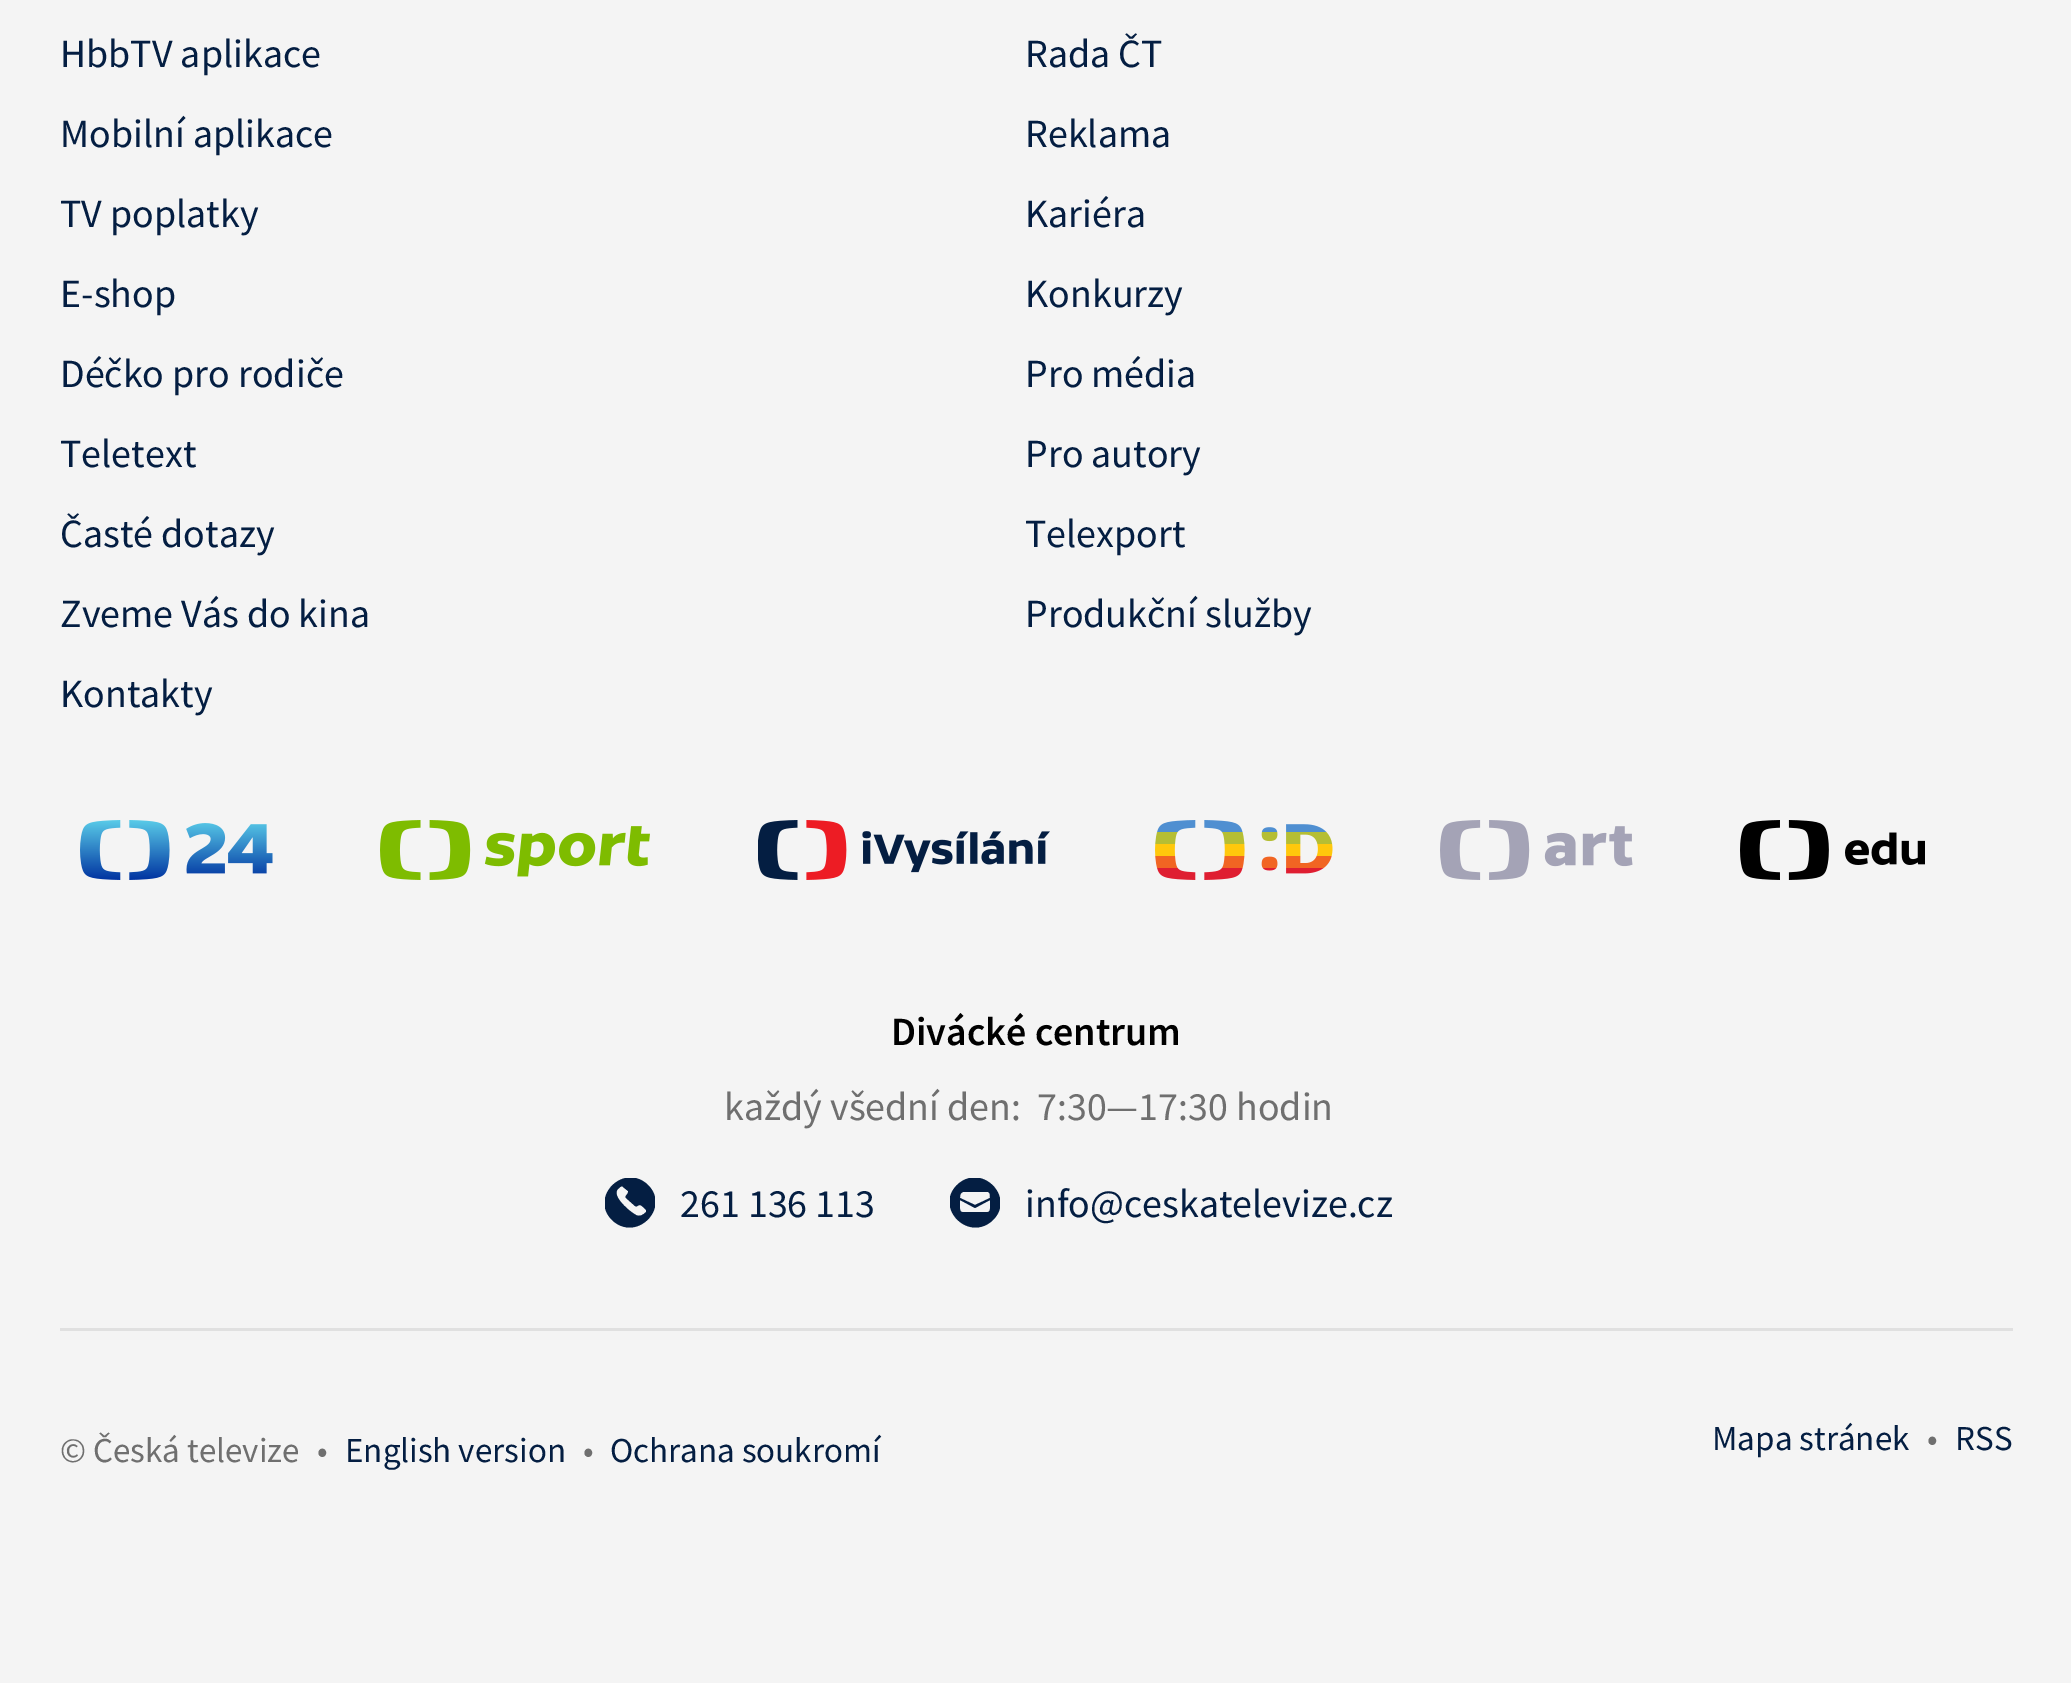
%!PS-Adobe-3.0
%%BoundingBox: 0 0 2071 1683
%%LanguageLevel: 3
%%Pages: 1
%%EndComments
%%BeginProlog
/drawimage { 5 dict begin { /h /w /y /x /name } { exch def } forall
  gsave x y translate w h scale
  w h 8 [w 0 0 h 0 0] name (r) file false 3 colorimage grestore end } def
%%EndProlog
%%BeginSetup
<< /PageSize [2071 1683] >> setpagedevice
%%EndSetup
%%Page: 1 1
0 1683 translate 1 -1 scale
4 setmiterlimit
0.957 setgray
0 0 2071 1683 rectfill
(images/1.raw) 80 820 193 60 drawimage
(images/2.raw) 380 820 270 60 drawimage
(images/3.raw) 758 820 292 60 drawimage
(images/4.raw) 1155 820 178 60 drawimage
(images/5.raw) 1440 820 193 60 drawimage
(images/6.raw) 1740 820 185 60 drawimage
gsave
605 1178 50 50 rectclip
0.016 0.118 0.259 setrgbcolor
newpath 612 1220 moveto 636 1243 671 1208 648 1185 curveto 624 1162 589 1197 612 1220 curveto closepath 623 1187 moveto 628 1191 lineto 629 1194 624 1196 626 1198 curveto 635 1206 lineto 638 1208 638 1202 643 1207 curveto 646 1210 lineto 646 1211 646 1212 646 1212 curveto 643 1215 640 1217 636 1215 curveto 630 1212 611 1196 618 1189 curveto 620 1187 622 1185 623 1187 curveto closepath eofill
grestore
gsave
950 1178 50 50 rectclip
0.016 0.118 0.259 setrgbcolor
newpath 957 1185 moveto 981 1162 1016 1197 993 1220 curveto 969 1243 934 1208 957 1185 curveto closepath 990 1200 moveto 975 1208 lineto 960 1200 lineto 960 1215 958 1212 975 1212 curveto 992 1212 990 1215 990 1200 curveto closepath 988 1192 moveto 971 1192 lineto 964 1192 960 1190 960 1198 curveto 975 1205 lineto 990 1198 lineto 990 1196 990 1192 988 1192 curveto closepath eofill
grestore
0.878 setgray
60 1328 1953 3 rectfill
/SourceSansPro-Regular [40 0 0 -40 0 0] selectfont
0.016 0.118 0.259 setrgbcolor
60 67 moveto (HbbTV aplikace) show
1025 67 moveto (Rada ČT) show
60 147 moveto (Mobilní aplikace) show
1025 147 moveto (Reklama) show
60 227 moveto (TV poplatky) show
1025 227 moveto (Kariéra) show
60 307 moveto (E-shop) show
1025 307 moveto (Konkurzy) show
60 387 moveto (Déčko pro rodiče) show
1025 387 moveto (Pro média) show
60 467 moveto (Teletext) show
1025 467 moveto (Pro autory) show
60 547 moveto (Časté dotazy) show
1025 547 moveto (Telexport) show
60 627 moveto (Zveme Vás do kina) show
1025 627 moveto (Produkční služby) show
60 707 moveto (Kontakty) show
/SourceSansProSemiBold-SemiBold [40 0 0 -40 0 0] selectfont
0 setgray
891 1045 moveto (Divácké centrum) show
/SourceSansPro-Regular [40 0 0 -40 0 0] selectfont
0.435 setgray
724 1120 moveto (každý všední den:  7:30—17:30 hodin) show
0.016 0.118 0.259 setrgbcolor
680 1217 moveto (261 136 113) show
1025 1217 moveto (info@ceskatelevize.cz) show
/SourceSansPro-Regular [35 0 0 -35 0 0] selectfont
0.435 setgray
60 1462 moveto (© Česká televize) show
317 1462 moveto (•) show
0.016 0.118 0.259 setrgbcolor
345 1462 moveto (English version) show
0.435 setgray
583 1462 moveto (•) show
0.016 0.118 0.259 setrgbcolor
610 1462 moveto (Ochrana soukromí) show
1712 1450 moveto (Mapa stránek) show
0.435 setgray
1927 1450 moveto (•) show
0.016 0.118 0.259 setrgbcolor
1955 1450 moveto (RSS) show
showpage
%%EOF
